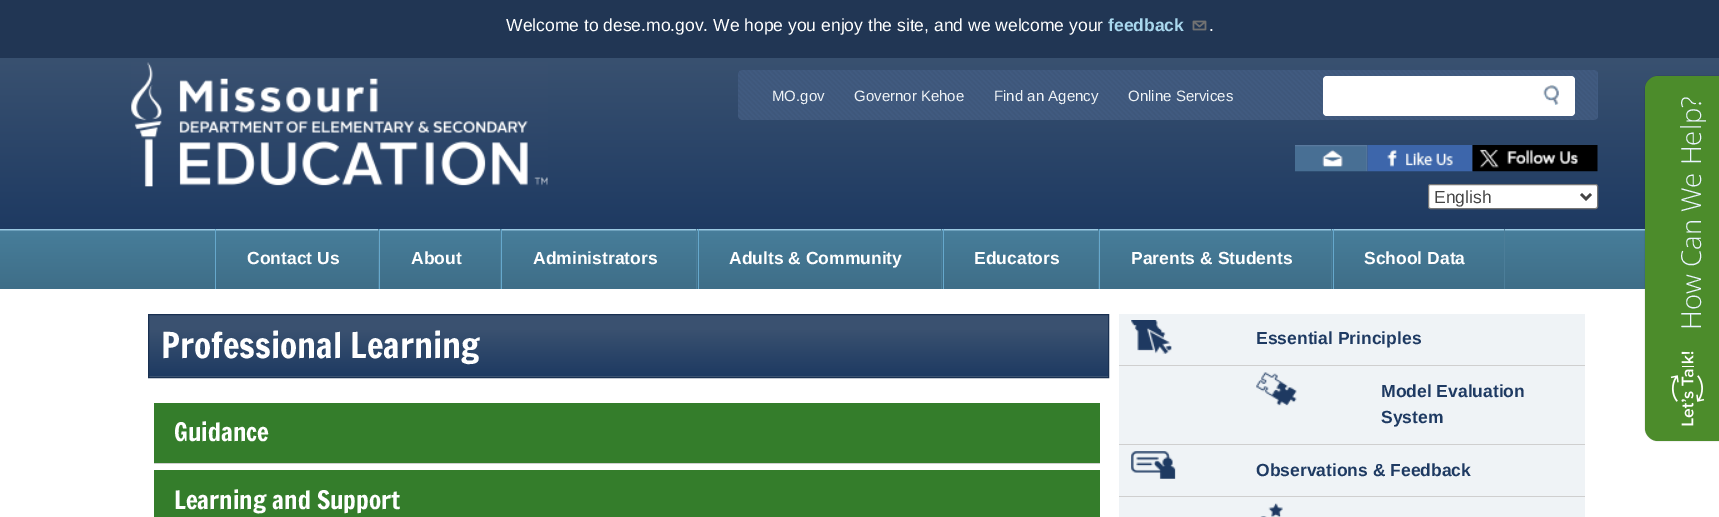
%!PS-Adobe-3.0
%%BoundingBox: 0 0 1719 517
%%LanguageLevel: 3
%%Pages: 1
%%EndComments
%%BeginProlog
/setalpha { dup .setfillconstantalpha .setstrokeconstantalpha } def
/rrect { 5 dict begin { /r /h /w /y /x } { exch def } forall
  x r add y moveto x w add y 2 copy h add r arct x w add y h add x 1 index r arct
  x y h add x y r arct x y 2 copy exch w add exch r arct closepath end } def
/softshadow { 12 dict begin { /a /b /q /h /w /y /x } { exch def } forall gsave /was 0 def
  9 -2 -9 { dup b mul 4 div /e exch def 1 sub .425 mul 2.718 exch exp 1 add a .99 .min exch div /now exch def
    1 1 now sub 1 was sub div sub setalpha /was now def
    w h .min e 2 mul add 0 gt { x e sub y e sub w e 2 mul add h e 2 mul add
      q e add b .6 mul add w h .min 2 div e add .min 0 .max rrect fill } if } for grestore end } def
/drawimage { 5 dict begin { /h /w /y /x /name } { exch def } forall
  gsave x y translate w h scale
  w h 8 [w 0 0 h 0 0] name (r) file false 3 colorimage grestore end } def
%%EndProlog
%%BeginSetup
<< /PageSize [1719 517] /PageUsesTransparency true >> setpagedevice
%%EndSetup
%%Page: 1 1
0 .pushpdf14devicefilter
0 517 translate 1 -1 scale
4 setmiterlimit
1 setgray
0 0 1719 517 rectfill
gsave newpath 0 58 moveto 1719 58 lineto 1719 229 lineto 0 229 lineto closepath clip newpath
<< /ShadingType 2 /ColorSpace /DeviceRGB /Coords [860 0 860 229] /Extend [true true] /Function << /FunctionType 3 /Domain [0 1] /Functions [<< /FunctionType 2 /Domain [0 1] /C0 [0.227 0.318 0.439] /C1 [0.227 0.318 0.439] /N 1 >> << /FunctionType 2 /Domain [0 1] /C0 [0.227 0.318 0.439] /C1 [0.118 0.227 0.384] /N 1 >>] /Bounds [0.24] /Encode [0 1 0 1] >> >> shfill grestore
0.129 0.212 0.329 setrgbcolor
0 0 1719 58 rectfill
(images/1.raw) 1192 20 15 11 drawimage
(images/2.raw) 131 62 417 125 drawimage
0.255 0.357 0.506 setrgbcolor
738 70 860 50 4 rrect fill
(images/3.raw) 738 70 859 50 drawimage
1 setgray
1323 76 252 40 4 rrect fill
(images/4.raw) 1543 85 16 20 drawimage
(images/5.raw) 1295 145 73 27 drawimage
(images/6.raw) 1367 145 106 27 drawimage
(images/7.raw) 1472 145 126 27 drawimage
1428.5 184.5 169 24 2 rrect gsave fill grestore
0.463 setgray
stroke
0.267 setgray
2.5 setlinewidth
newpath 1581 194 moveto 1586 199 lineto 1591 194 lineto stroke
gsave newpath 0 229 moveto 1645 229 lineto 1645 289 lineto 0 289 lineto closepath clip newpath
<< /ShadingType 2 /ColorSpace /DeviceRGB /Coords [860 229 860 289] /Extend [true true] /Function << /FunctionType 3 /Domain [0 1] /Functions [<< /FunctionType 2 /Domain [0 1] /C0 [0.698 0.871 0.961] /C1 [0.278 0.49 0.604] /N 1 >> << /FunctionType 2 /Domain [0 1] /C0 [0.278 0.49 0.604] /C1 [0.247 0.431 0.533] /N 1 >>] /Bounds [0.04] /Encode [0 1 0 1] >> >> shfill grestore
0.298 0.494 0.6 setrgbcolor
378 229 1 60 rectfill
0.4 0.659 0.8 setrgbcolor
215 229 1 60 rectfill
0.298 0.494 0.6 setrgbcolor
500 229 1 60 rectfill
0.4 0.659 0.8 setrgbcolor
379 229 1 60 rectfill
0.298 0.494 0.6 setrgbcolor
696 229 1 60 rectfill
0.4 0.659 0.8 setrgbcolor
501 229 1 60 rectfill
0.298 0.494 0.6 setrgbcolor
941 229 1 60 rectfill
0.4 0.659 0.8 setrgbcolor
698 229 1 60 rectfill
0.298 0.494 0.6 setrgbcolor
1098 229 1 60 rectfill
0.4 0.659 0.8 setrgbcolor
943 229 1 60 rectfill
0.298 0.494 0.6 setrgbcolor
1331 229 1 60 rectfill
0.4 0.659 0.8 setrgbcolor
1099 229 1 60 rectfill
0.298 0.494 0.6 setrgbcolor
1504 229 1 60 rectfill
0.4 0.659 0.8 setrgbcolor
1333 229 1 60 rectfill
gsave newpath 149 315 moveto 1108 315 lineto 1108 376 lineto 149 376 lineto closepath clip newpath
<< /ShadingType 2 /ColorSpace /DeviceRGB /Coords [628 315 628 376] /Extend [true true] /Function << /FunctionType 3 /Domain [0 1] /Functions [<< /FunctionType 2 /Domain [0 1] /C0 [0.227 0.318 0.439] /C1 [0.227 0.318 0.439] /N 1 >> << /FunctionType 2 /Domain [0 1] /C0 [0.227 0.318 0.439] /C1 [0.118 0.227 0.384] /N 1 >>] /Bounds [0.24] /Encode [0 1 0 1] >> >> shfill grestore
gsave newpath 148 376 moveto 1109 376 lineto 1109 377 lineto 148 377 lineto closepath clip newpath
<< /ShadingType 2 /ColorSpace /DeviceRGB /Coords [628 376 628 438] /Extend [true true] /Function << /FunctionType 3 /Domain [0 1] /Functions [<< /FunctionType 2 /Domain [0 1] /C0 [0.227 0.318 0.439] /C1 [0.227 0.318 0.439] /N 1 >> << /FunctionType 2 /Domain [0 1] /C0 [0.227 0.318 0.439] /C1 [0.118 0.227 0.384] /N 1 >>] /Bounds [0.24] /Encode [0 1 0 1] >> >> shfill grestore
0.098 0.188 0.318 setrgbcolor
1 setlinewidth
148.5 314.5 960 63 rectstroke
0.204 0.49 0.169 setrgbcolor
154 403 946 60 rectfill
0.812 setgray
154 463 946 1 rectfill
0.204 0.49 0.169 setrgbcolor
154 470 946 47 rectfill
0.937 0.953 0.965 setrgbcolor
1119 314 466 203 rectfill
0.812 setgray
1119 365 466 1 rectfill
(images/8.raw) 1131 320 41 34 drawimage
1119 444 466 1 rectfill
(images/9.raw) 1256 372 41 34 drawimage
1119 496 466 1 rectfill
(images/10.raw) 1131 451 45 28 drawimage
(images/11.raw) 1260 503 23 14 drawimage
0 setgray
1645 76 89 365 13 0.5 0.22 softshadow
0.298 0.549 0.169 setrgbcolor
newpath 1658 76 moveto 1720 76 lineto 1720 441 lineto 1658 441 lineto 1651 441 1645 435 1645 428 curveto 1645 89 lineto 1645 82 1651 76 1658 76 curveto closepath fill
(images/12.raw) 1670 351 35 75 drawimage
/LiberationSans-Regular [17.5 0 0 -17.5 0 0] selectfont
1 setgray
506 31 moveto (Welcome to dese.mo.gov. We hope you enjoy the site, and we welcome your) show
/LiberationSans-Bold [17.5 0 0 -17.5 0 0] selectfont
0.663 0.847 0.933 setrgbcolor
1108 31 moveto (feedback) show
/LiberationSans-Regular [17.5 0 0 -17.5 0 0] selectfont
1 setgray
1209 31 moveto (.) show
/LiberationSans-Regular [15 0 0 -15 0 0] selectfont
0.937 0.953 0.965 setrgbcolor
772 101 moveto (MO.gov) show
854 101 moveto (Governor Kehoe) show
994 101 moveto (Find an Agency) show
1128 101 moveto (Online Services) show
/LiberationSans-Regular [17.5 0 0 -17.5 0 0] selectfont
0.267 setgray
1434 203 moveto (English) show
/LiberationSans-Bold [17.5 0 0 -17.5 0 0] selectfont
1 setgray
247 264 moveto (Contact Us) show
411 264 moveto (About) show
533 264 moveto (Administrators) show
729 264 moveto (Adults & Community) show
974 264 moveto (Educators) show
1131 264 moveto (Parents & Students) show
1364 264 moveto (School Data) show
/FrancoisOne-Regular [35 0 0 -35 0 0] selectfont
161 358 moveto (Professional Learning) show
/FrancoisOne-Regular [25 0 0 -25 0 0] selectfont
174 441 moveto (Guidance) show
174 509 moveto (Learning and Support) show
/LiberationSans-Bold [17.5 0 0 -17.5 0 0] selectfont
0.118 0.227 0.384 setrgbcolor
1256 344 moveto (Essential Principles) show
1381 397 moveto (Model Evaluation) show
1381 423 moveto (System) show
1256 476 moveto (Observations & Feedback) show
gsave
newpath 1674 330 moveto 1674 96 lineto 1706 96 lineto 1706 330 lineto closepath clip newpath
/OpenSans-Light [27.5 0 0 -27.5 0 0] selectfont
0.914 0.957 1 setrgbcolor
gsave 1701 330 translate -90 rotate 0 0 moveto (How Can We Help?) show grestore
grestore
.poppdf14devicefilter showpage
%%EOF
